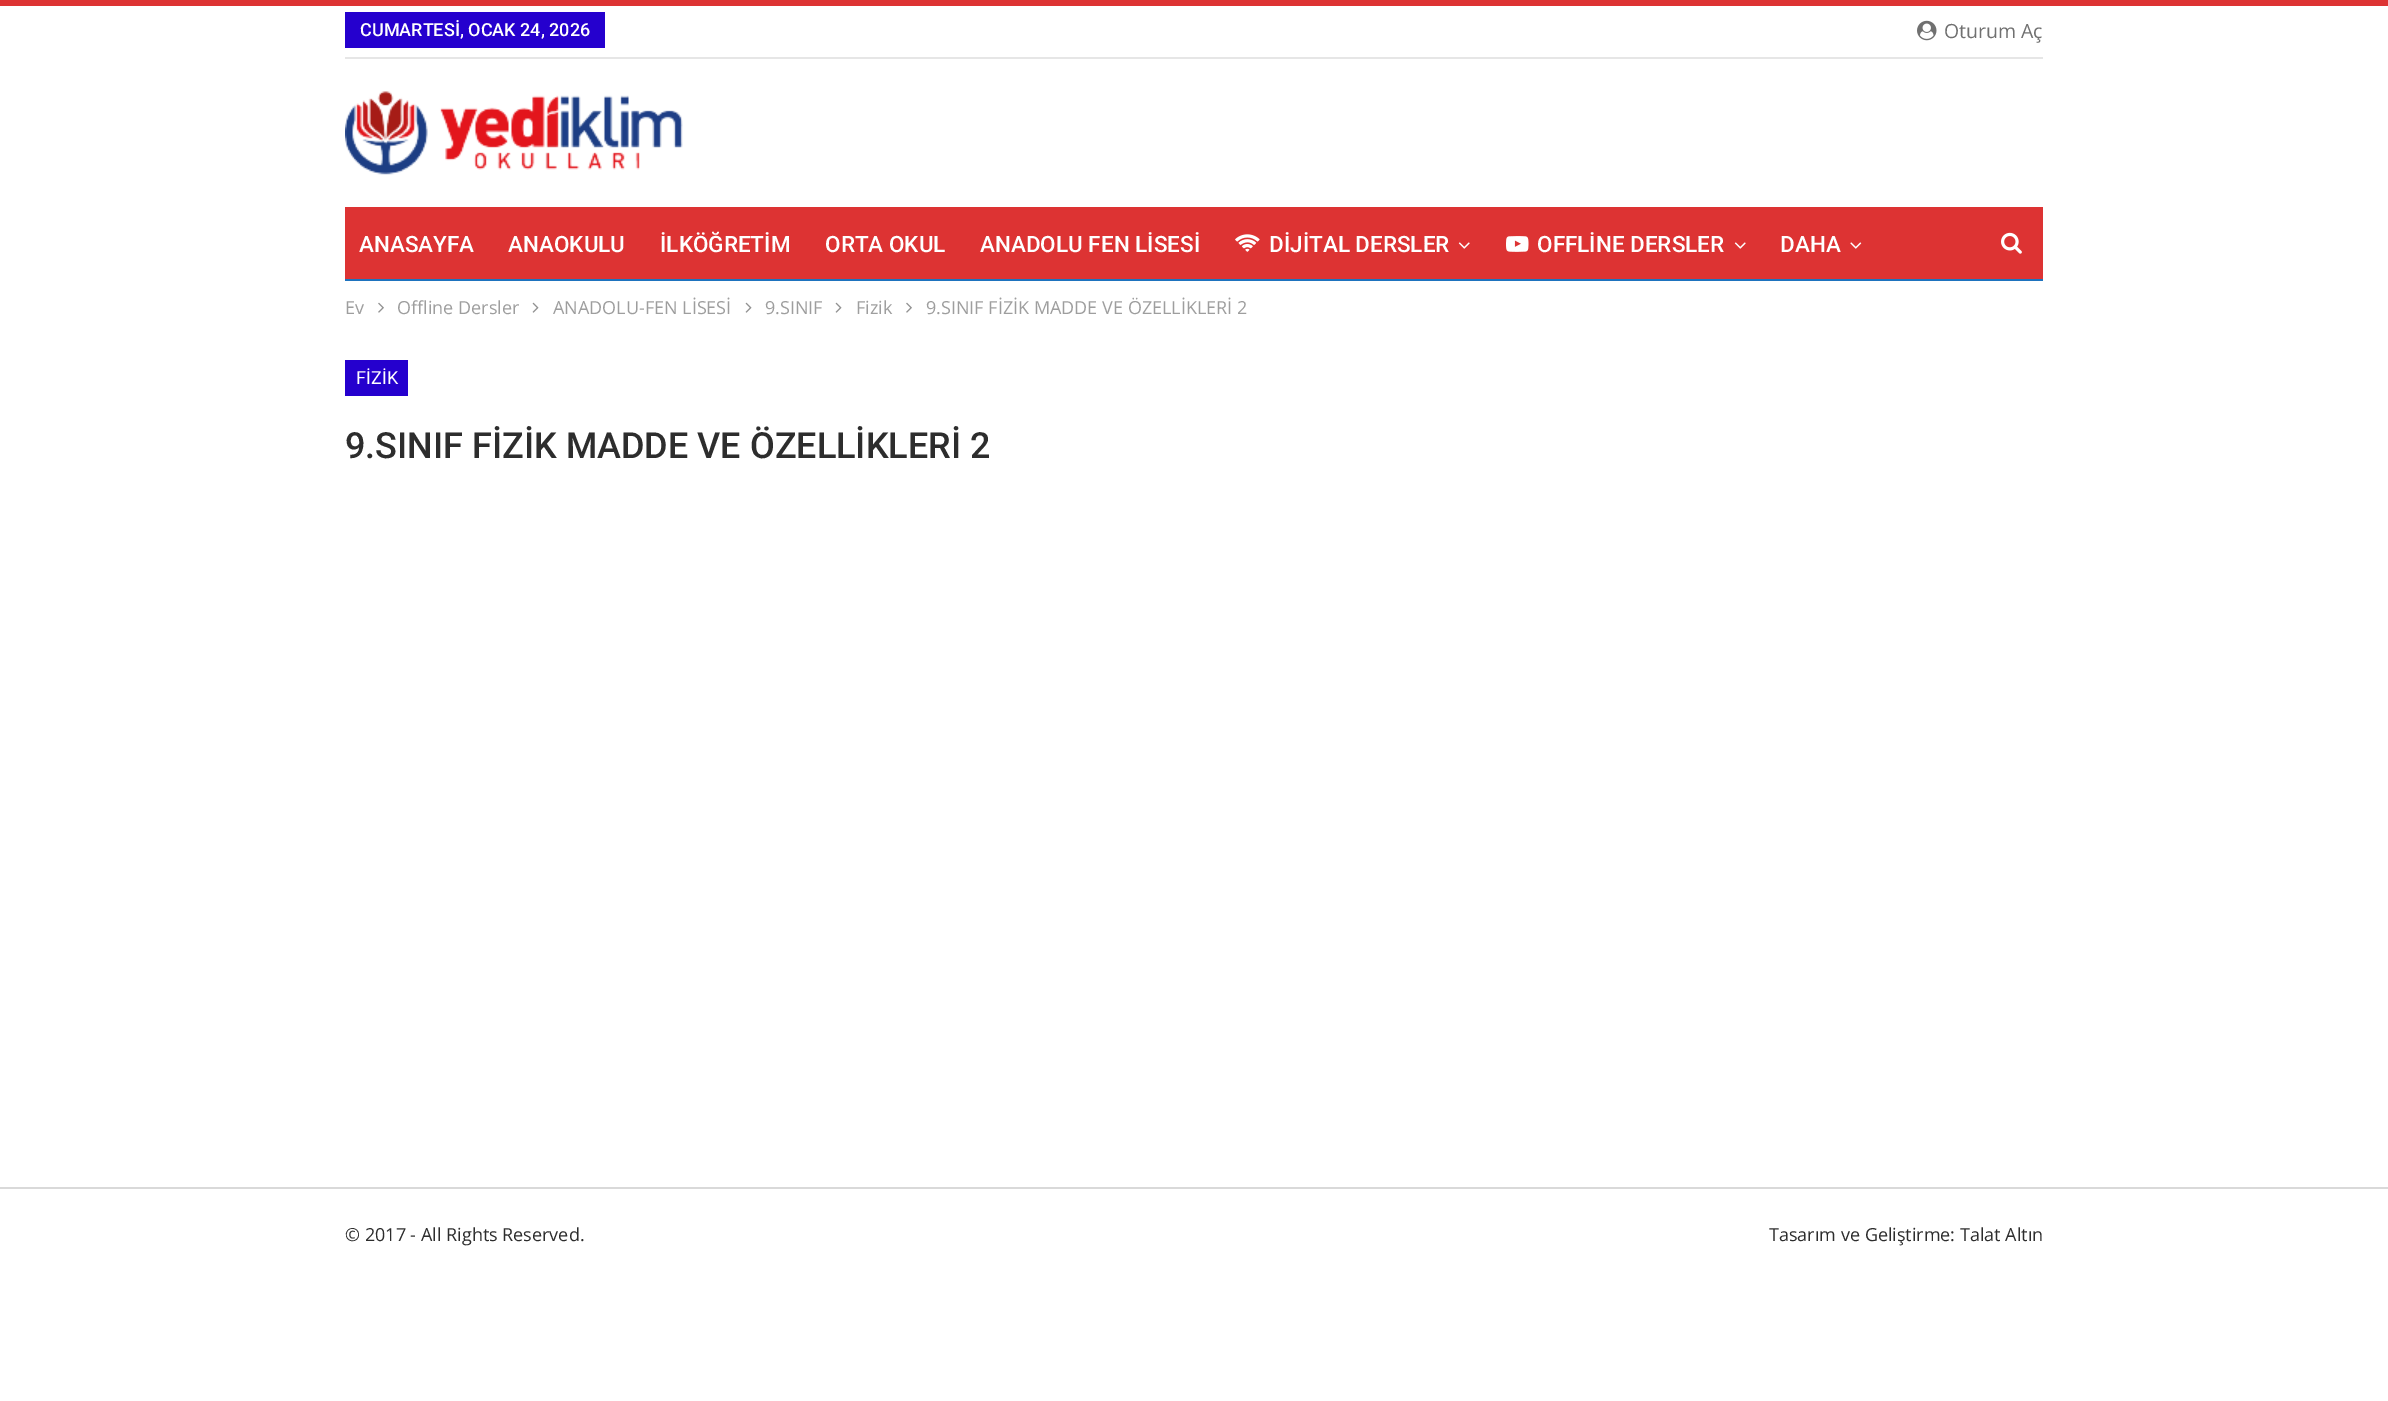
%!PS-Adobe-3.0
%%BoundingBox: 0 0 2388 1401
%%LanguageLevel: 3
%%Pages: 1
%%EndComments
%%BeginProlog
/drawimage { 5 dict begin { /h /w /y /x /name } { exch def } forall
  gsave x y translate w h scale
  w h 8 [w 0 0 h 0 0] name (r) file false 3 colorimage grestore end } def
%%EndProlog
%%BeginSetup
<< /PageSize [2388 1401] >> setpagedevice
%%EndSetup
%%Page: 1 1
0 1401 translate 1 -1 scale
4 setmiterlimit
1 setgray
0 0 2388 1401 rectfill
0.867 0.2 0.2 setrgbcolor
0 0 2388 6 rectfill
0.902 setgray
345 57 1698 2 rectfill
0.145 0 0.808 setrgbcolor
345 12 260 36 rectfill
(images/1.raw) 1917 20 20 21 drawimage
(images/2.raw) 345 91 338 84 drawimage
0.867 0.2 0.2 setrgbcolor
345 207 1698 72 rectfill
0.118 0.451 0.745 setrgbcolor
345 279 1698 2 rectfill
(images/3.raw) 1235 234 25 18 drawimage
(images/4.raw) 1458 242 12 7 drawimage
(images/5.raw) 1506 236 23 16 drawimage
(images/4.raw) 1734 242 12 7 drawimage
(images/6.raw) 1850 242 12 7 drawimage
(images/7.raw) 2001 232 21 22 drawimage
(images/8.raw) 378 302 6 11 drawimage
(images/9.raw) 532 302 7 11 drawimage
(images/9.raw) 745 302 7 11 drawimage
(images/9.raw) 835 302 7 11 drawimage
(images/8.raw) 906 302 6 11 drawimage
0.145 0 0.808 setrgbcolor
345 360 63 36 rectfill
0.851 setgray
0 1187 2388 2 rectfill
/Roboto-Medium [18 0 0 -18 0 0] selectfont
1 setgray
360 36 moveto (CUMARTESİ, OCAK 24, 2026) show
/OpenSans-Regular [19.5 0 0 -19.5 0 0] selectfont
0.439 setgray
1944 38 moveto (Oturum Aç) show
/Roboto-Medium [22.5 0 0 -22.5 0 0] selectfont
1 setgray
359 252 moveto (ANASAYFA) show
508 252 moveto (ANAOKULU) show
660 252 moveto (İLKÖĞRETİM) show
825 252 moveto (ORTA OKUL) show
980 252 moveto (ANADOLU FEN LİSESİ) show
1269 252 moveto (DİJİTAL DERSLER) show
1537 252 moveto (OFFLİNE DERSLER) show
1780 252 moveto (DAHA) show
/OpenSans-Regular [18 0 0 -18 0 0] selectfont
0.62 setgray
345 314 moveto (Ev) show
397 314 moveto (Offline Dersler) show
553 314 moveto (ANADOLU-FEN LİSESİ) show
765 314 moveto (9.SINIF) show
856 314 moveto (Fizik) show
926 314 moveto (9.SINIF FİZİK MADDE VE ÖZELLİKLERİ 2) show
/Roboto-Regular [18 0 0 -18 0 0] selectfont
1 setgray
356 384 moveto (FİZİK) show
/Roboto-Medium [36 0 0 -36 0 0] selectfont
0.176 setgray
345 458 moveto (9.SINIF FİZİK MADDE VE ÖZELLİKLERİ 2) show
/OpenSans-Regular [18 0 0 -18 0 0] selectfont
345 1241 moveto (© 2017 - All Rights Reserved.) show
1769 1241 moveto (Tasarım ve Geliştirme: Talat Altın) show
showpage
%%EOF
